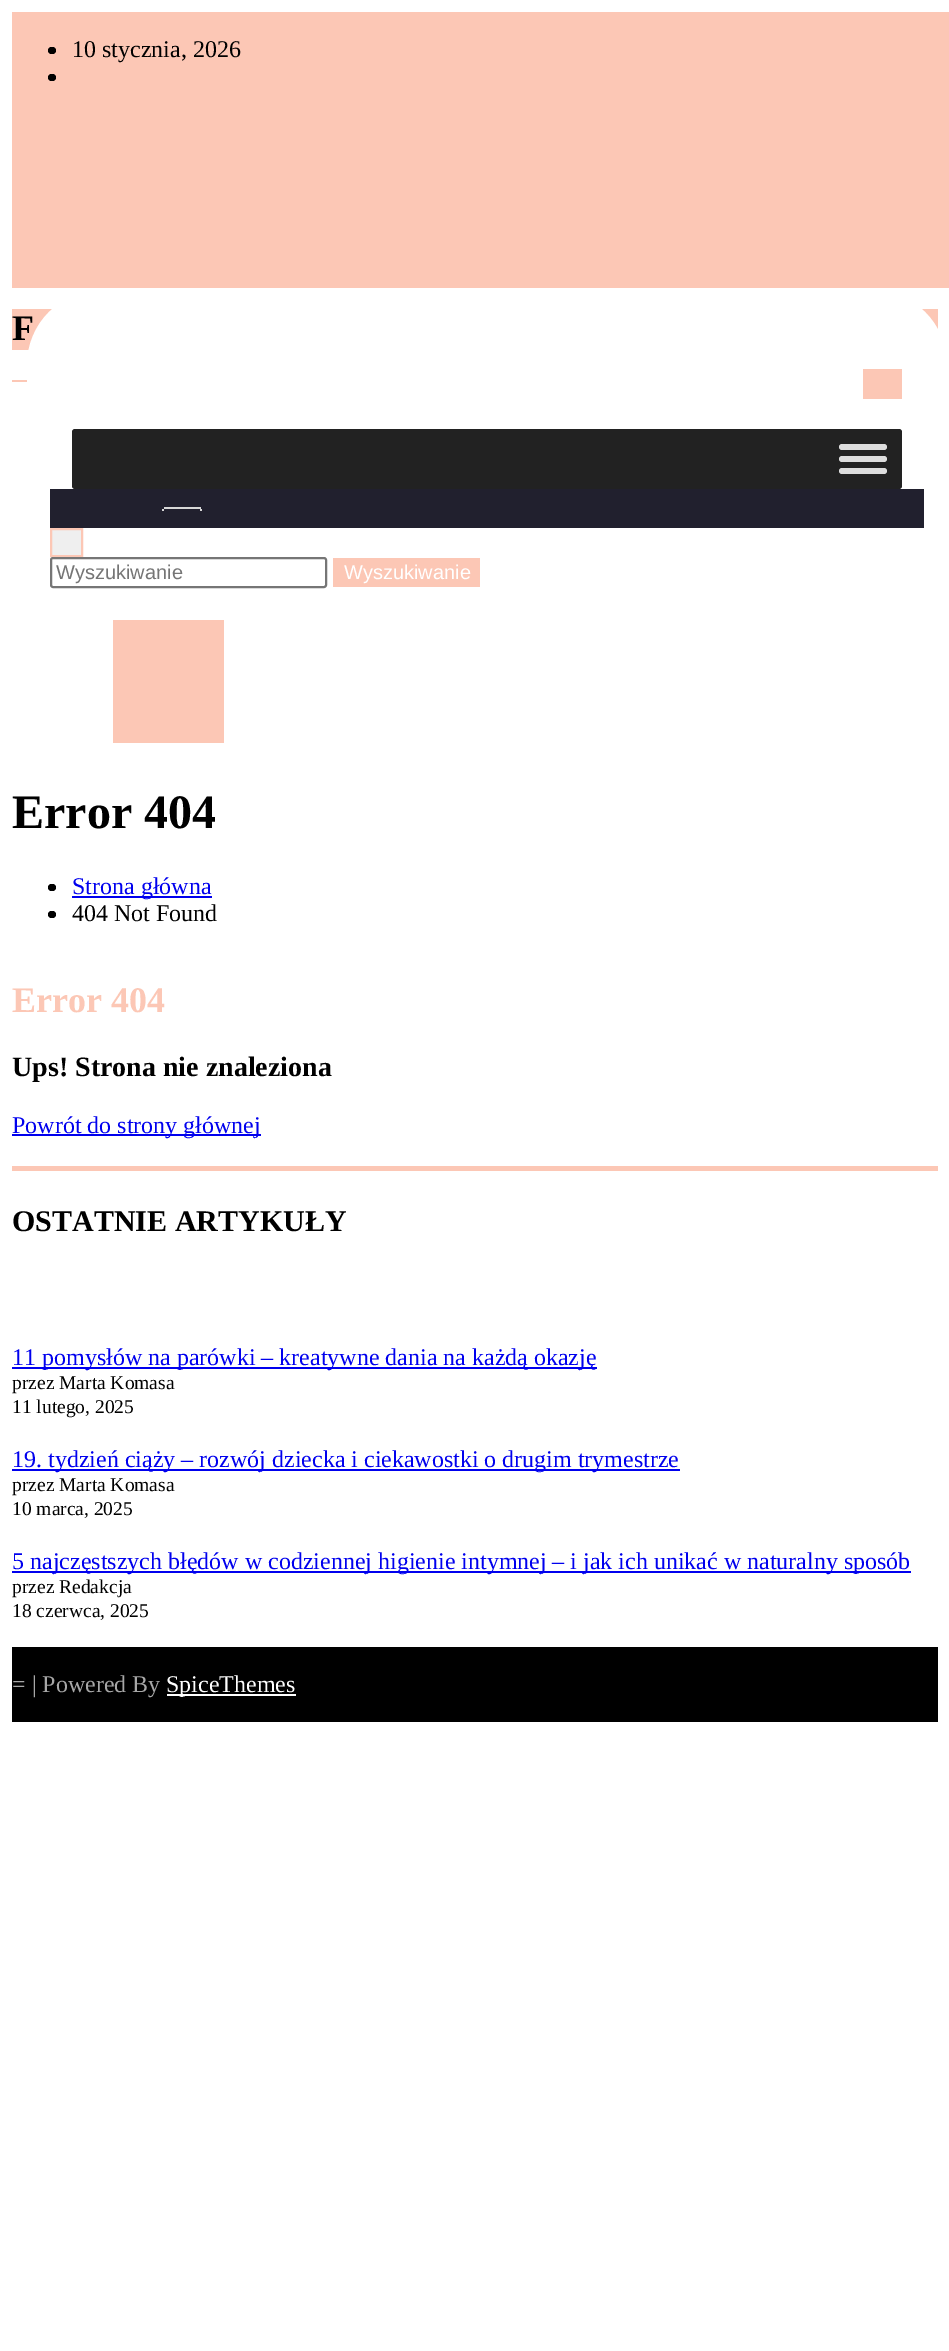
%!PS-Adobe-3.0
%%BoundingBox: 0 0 949 2351
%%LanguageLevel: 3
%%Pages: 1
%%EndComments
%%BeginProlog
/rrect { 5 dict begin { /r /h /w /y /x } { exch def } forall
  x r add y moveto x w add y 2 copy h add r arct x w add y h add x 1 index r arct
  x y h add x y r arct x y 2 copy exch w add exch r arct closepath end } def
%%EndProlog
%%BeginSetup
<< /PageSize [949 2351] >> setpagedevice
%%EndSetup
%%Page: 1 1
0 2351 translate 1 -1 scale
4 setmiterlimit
1 setgray
0 0 949 2351 rectfill
0.988 0.78 0.71 setrgbcolor
12 380 15 2 rectfill
12 309 926 41 rectfill
12 12 937 276 rectfill
0 setgray
48 47 8 7 3.5 rrect fill
48 74 8 7 3.5 rrect fill
48 884 8 7 3.5 rrect fill
0 0 0.933 setrgbcolor
72 896 140 2 rectfill
0 setgray
48 911 8 7 3.5 rrect fill
0 0 0.933 setrgbcolor
12 1134 249 2 rectfill
0.988 0.78 0.71 setrgbcolor
12 1166 926 5 rectfill
0 0 0.933 setrgbcolor
12 1367 585 2 rectfill
12 1469 668 2 rectfill
12 1571 899 2 rectfill
0 setgray
12 1647 926 75 rectfill
1 setgray
167 1694 129 2 rectfill
/LiberationSerif-Bold [36 0 0 -36 0 0] selectfont
0 setgray
12 340 moveto (F) show
/LiberationSerif-Regular [24 0 0 -24 0 0] selectfont
72 57 moveto (10 stycznia, 2026) show
1 setgray
27 290 920 451 75 rrect fill
0.988 0.78 0.71 setrgbcolor
863 369 39 30 rectfill
0.133 setgray
72 429 830 60 3 rrect fill
0.867 setgray
839 444 48 6 3 rrect fill
839 456 48 6 3 rrect fill
839 468 48 6 3 rrect fill
0.129 0.125 0.18 setrgbcolor
50 489 874 39 rectfill
0.843 setgray
164 507 37 2 rectfill
200 509 2 2 rectfill
162 509 2 2 rectfill
0.937 setgray
newpath 51 529 moveto 82 529 lineto 82 556 lineto 51 556 lineto closepath gsave fill grestore
0.988 0.78 0.71 setrgbcolor
2 setlinewidth
stroke
0.463 setgray
51 558 275 29 2 rrect stroke
/LiberationSans-Regular [20 0 0 -20 0 0] selectfont
0.459 setgray
56 579 moveto (Wyszukiwanie) show
0.988 0.78 0.71 setrgbcolor
333 558 147 29 rectfill
1 setgray
344 579 moveto (Wyszukiwanie) show
0.988 0.78 0.71 setrgbcolor
113 620 111 123 rectfill
/LiberationSerif-Bold [48 0 0 -48 0 0] selectfont
0 setgray
12 828 moveto (Error 404) show
/LiberationSerif-Regular [24 0 0 -24 0 0] selectfont
0 0 0.933 setrgbcolor
72 894 moveto (Strona główna) show
0 setgray
72 921 moveto (404 Not Found) show
/LiberationSerif-Bold [36 0 0 -36 0 0] selectfont
0.988 0.78 0.71 setrgbcolor
12 1012 moveto (Error 404) show
/LiberationSerif-Bold [28 0 0 -28 0 0] selectfont
0 setgray
12 1076 moveto (Ups! Strona nie znaleziona) show
/LiberationSerif-Regular [24 0 0 -24 0 0] selectfont
0 0 0.933 setrgbcolor
12 1133 moveto (Powrót do strony głównej) show
/LiberationSerif-Bold [30 0 0 -30 0 0] selectfont
0 setgray
12 1231 moveto (OSTATNIE ARTYKUŁY) show
/LiberationSerif-Regular [24 0 0 -24 0 0] selectfont
0 0 0.933 setrgbcolor
12 1365 moveto (11 pomysłów na parówki – kreatywne dania na każdą okazję) show
/LiberationSerif-Regular [19.5 0 0 -19.5 0 0] selectfont
0 setgray
12 1389 moveto (przez Marta Komasa) show
12 1413 moveto (11 lutego, 2025) show
/LiberationSerif-Regular [24 0 0 -24 0 0] selectfont
0 0 0.933 setrgbcolor
12 1467 moveto (19. tydzień ciąży – rozwój dziecka i ciekawostki o drugim trymestrze) show
/LiberationSerif-Regular [19.5 0 0 -19.5 0 0] selectfont
0 setgray
12 1491 moveto (przez Marta Komasa) show
12 1515 moveto (10 marca, 2025) show
/LiberationSerif-Regular [24 0 0 -24 0 0] selectfont
0 0 0.933 setrgbcolor
12 1569 moveto (5 najczęstszych błędów w codziennej higienie intymnej – i jak ich unikać w naturalny sposób) show
/LiberationSerif-Regular [19.5 0 0 -19.5 0 0] selectfont
0 setgray
12 1593 moveto (przez Redakcja) show
12 1617 moveto (18 czerwca, 2025) show
/LiberationSerif-Regular [24 0 0 -24 0 0] selectfont
0.655 setgray
12 1692 moveto (= | Powered By) show
1 setgray
166 1692 moveto (SpiceThemes) show
showpage
%%EOF
